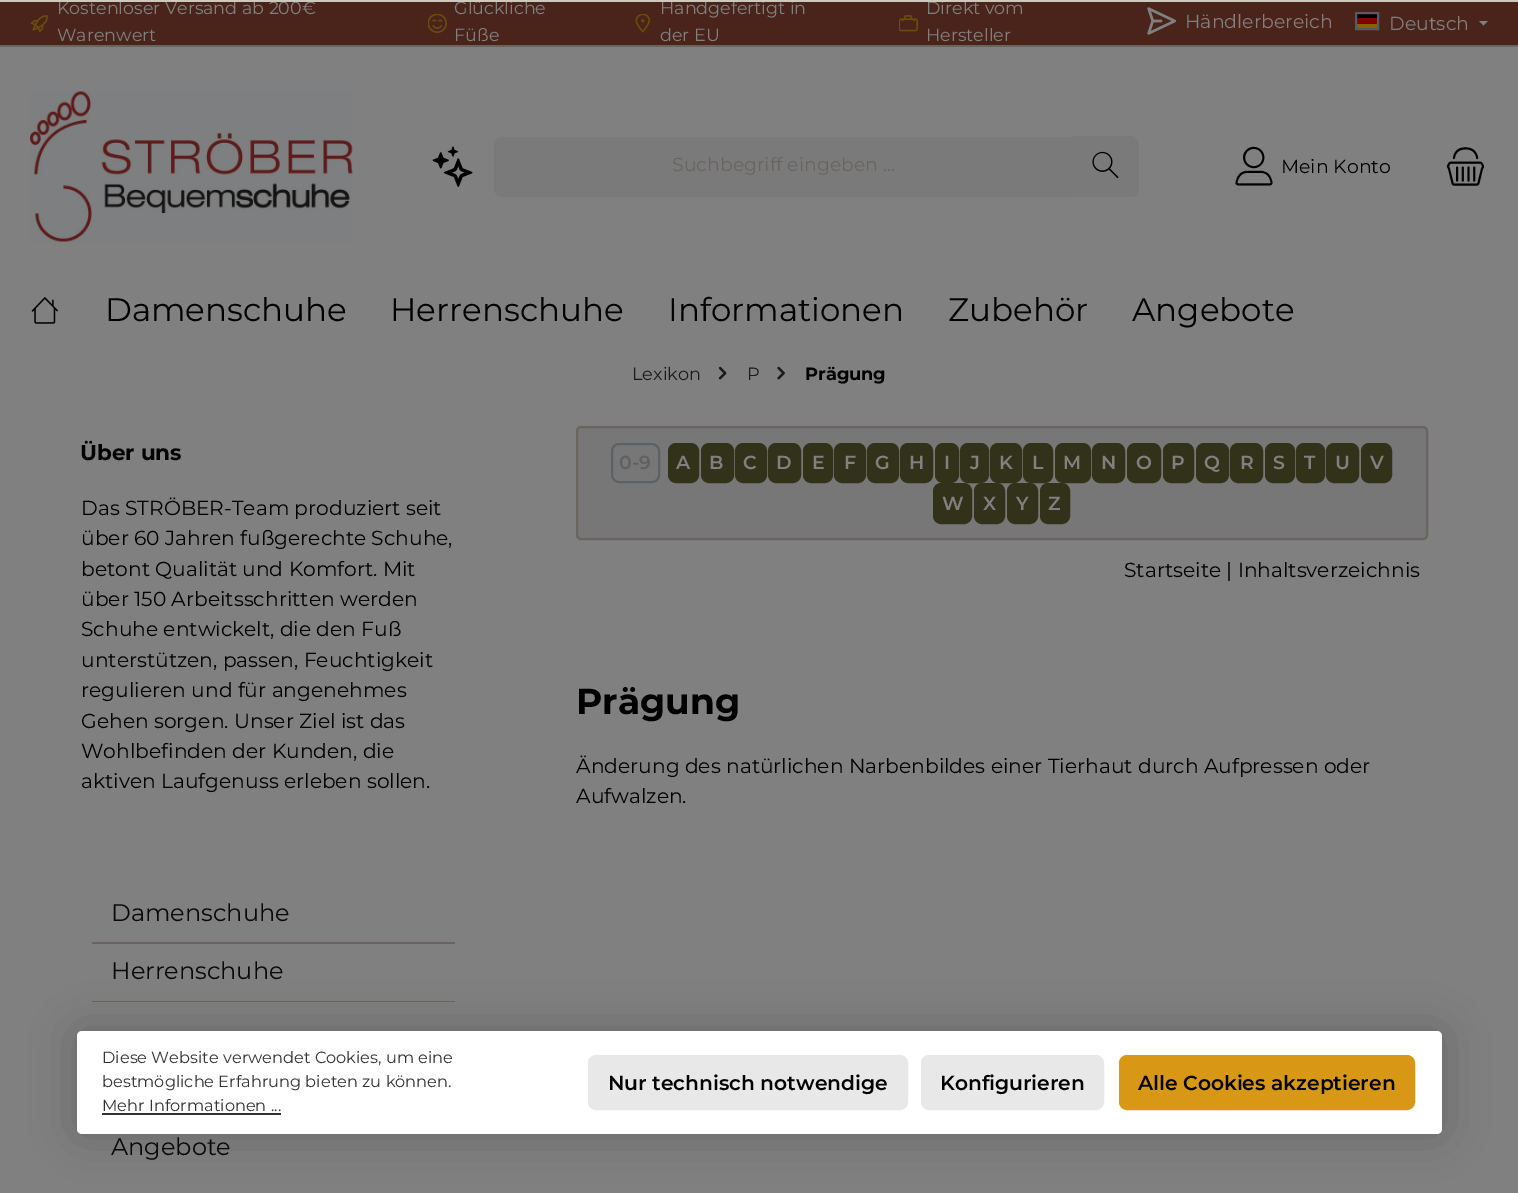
%!PS-Adobe-3.0
%%BoundingBox: 0 0 1518 1193
%%LanguageLevel: 3
%%Pages: 1
%%EndComments
%%BeginProlog
/setalpha { dup .setfillconstantalpha .setstrokeconstantalpha } def
/rrect { 5 dict begin { /r /h /w /y /x } { exch def } forall
  x r add y moveto x w add y 2 copy h add r arct x w add y h add x 1 index r arct
  x y h add x y r arct x y 2 copy exch w add exch r arct closepath end } def
/softshadow { 12 dict begin { /a /b /q /h /w /y /x } { exch def } forall gsave /was 0 def
  9 -2 -9 { dup b mul 4 div /e exch def 1 sub .425 mul 2.718 exch exp 1 add a .99 .min exch div /now exch def
    1 1 now sub 1 was sub div sub setalpha /was now def
    w h .min e 2 mul add 0 gt { x e sub y e sub w e 2 mul add h e 2 mul add
      q e add b .6 mul add w h .min 2 div e add .min 0 .max rrect fill } if } for grestore end } def
/drawimage { 5 dict begin { /h /w /y /x /name } { exch def } forall
  gsave x y translate w h scale
  w h 8 [w 0 0 h 0 0] name (r) file false 3 colorimage grestore end } def
%%EndProlog
%%BeginSetup
<< /PageSize [1518 1193] /PageUsesTransparency true >> setpagedevice
%%EndSetup
%%Page: 1 1
0 .pushpdf14devicefilter
0 1193 translate 1 -1 scale
4 setmiterlimit
0.502 setgray
0 0 1518 1193 rectfill
0.29 0.137 0.106 setrgbcolor
0 2 1518 43 rectfill
0.408 0.392 0.373 setrgbcolor
0 45 1518 2 rectfill
(images/1.raw) 30 15 18 18 drawimage
(images/2.raw) 428 14 19 19 drawimage
(images/3.raw) 635 14 15 19 drawimage
(images/4.raw) 899 15 19 17 drawimage
(images/5.raw) 1147 7 30 28 drawimage
0 setgray
1356 14 21 4 rectfill
0.502 0 0 setrgbcolor
1356 18 21 6 rectfill
0.502 0.4 0 setrgbcolor
1356 24 21 4 rectfill
0.341 0.357 0.373 setrgbcolor
2 setlinewidth
1356 13 22 16 rectstroke
0.502 setgray
newpath 1479 21 moveto 1488 21 lineto 1483.5 25.5 lineto closepath fill
(images/6.raw) 30 91 323 151 drawimage
(images/7.raw) 432 146 41 41 drawimage
0.478 setgray
newpath 502 138 moveto 1073 138 lineto 1073 196 lineto 502 196 lineto 498 196 495 193 495 189 curveto 495 145 lineto 495 141 498 138 502 138 curveto closepath gsave fill grestore
stroke
newpath 1073 137 moveto 1131 137 lineto 1135.5 137 1139 140.5 1139 145 curveto 1139 189 lineto 1139 193.5 1135.5 197 1131 197 curveto 1073 197 lineto closepath fill
newpath 1072 136 moveto 1131 136 lineto 1135 136 1138 140 1138 144 curveto 1138 189 lineto 1138 193 1135 196 1131 196 curveto 1072 196 lineto closepath 1072 138 moveto 1131 138 lineto 1134 138 1137 141 1137 144 curveto 1137 189 lineto 1137 192 1134 195 1131 195 curveto 1072 195 lineto closepath eofill
(images/8.raw) 1092 151 27 28 drawimage
(images/9.raw) 1235 146 38 40 drawimage
(images/10.raw) 1446 147 39 39 drawimage
(images/11.raw) 31 297 27 27 drawimage
(images/12.raw) 718 366 9 14 drawimage
(images/13.raw) 777 366 8 14 drawimage
0.408 0.396 0.373 setrgbcolor
92 942 363 2 rectfill
92 1001 363 1 rectfill
0.467 setgray
577 427 850 112 4 rrect gsave fill grestore
0.408 0.396 0.373 setrgbcolor
stroke
0.369 0.38 0.392 setrgbcolor
612 444 47 38 7 rrect stroke
0.196 0.192 0.102 setrgbcolor
669 444 29 38 7 rrect gsave fill grestore
stroke
702 444 31 38 7 rrect gsave fill grestore
stroke
736 444 30 38 7 rrect gsave fill grestore
stroke
769 444 31 38 7 rrect gsave fill grestore
stroke
804 444 28 38 7 rrect gsave fill grestore
stroke
835 444 30 38 7 rrect gsave fill grestore
stroke
868 444 30 38 7 rrect gsave fill grestore
stroke
901 444 31 38 7 rrect gsave fill grestore
stroke
936 444 22 38 7 rrect gsave fill grestore
stroke
961 444 27 38 7 rrect gsave fill grestore
stroke
991 444 30 38 7 rrect gsave fill grestore
stroke
1024 444 28 38 7 rrect gsave fill grestore
stroke
1056 444 34 38 7 rrect gsave fill grestore
stroke
1093 444 31 38 7 rrect gsave fill grestore
stroke
1128 444 32 38 7 rrect gsave fill grestore
stroke
1164 444 29 38 7 rrect gsave fill grestore
stroke
1197 444 31 38 7 rrect gsave fill grestore
stroke
1231 444 31 38 7 rrect gsave fill grestore
stroke
1266 444 28 38 7 rrect gsave fill grestore
stroke
1297 444 27 38 7 rrect gsave fill grestore
stroke
1327 444 31 38 7 rrect gsave fill grestore
stroke
1362 444 29 38 7 rrect gsave fill grestore
stroke
934 484 37 39 7 rrect gsave fill grestore
stroke
975 484 29 39 7 rrect gsave fill grestore
stroke
1008 484 29 39 7 rrect gsave fill grestore
stroke
1041 484 28 39 7 rrect gsave fill grestore
stroke
0 setgray
77 1031 1365 103 5 22.5 0.2 softshadow
1 setgray
77 1031 1365 103 5 rrect fill
0.2 setgray
102 1113 179 2 rectfill
0.91 0.91 0.914 setrgbcolor
589 1056 318 53 7 rrect gsave fill grestore
stroke
922 1056 181 53 7 rrect gsave fill grestore
stroke
0.847 0.596 0.086 setrgbcolor
1120 1056 294 53 7 rrect gsave fill grestore
stroke
/Montserrat-Regular [17.5 0 0 -17.5 0 0] selectfont
0.502 setgray
57 14 moveto (Kostenloser Versand ab 200€) show
57 41 moveto (Warenwert) show
454 14 moveto (Glückliche) show
454 41 moveto (Füße) show
660 14 moveto (Handgefertigt in) show
660 41 moveto (der EU) show
926 14 moveto (Direkt vom) show
926 41 moveto (Hersteller) show
/Montserrat-Regular [18.9 0 0 -18.9 0 0] selectfont
1185 28 moveto (Händlerbereich) show
1389 30 moveto (Deutsch) show
0.408 0.396 0.373 setrgbcolor
672 171 moveto (Suchbegriff eingeben ...) show
0 setgray
1281 173 moveto (Mein Konto) show
/Montserrat-Regular [32.5 0 0 -32.5 0 0] selectfont
105 321 moveto (Damenschuhe) show
390 321 moveto (Herrenschuhe) show
668 321 moveto (Informationen) show
948 321 moveto (Zubehör) show
1132 321 moveto (Angebote) show
/Montserrat-Regular [17.75 0 0 -17.75 0 0] selectfont
0.102 setgray
632 380 moveto (Lexikon) show
747 380 moveto (P) show
/Montserrat-Bold [17.75 0 0 -17.75 0 0] selectfont
0 setgray
805 380 moveto (Prägung) show
/Montserrat-Bold [21.5 0 0 -21.5 0 0] selectfont
80 460 moveto (Über uns) show
/Montserrat-Regular [20.25 0 0 -20.25 0 0] selectfont
81 515 moveto (Das STRÖBER-Team produziert seit) show
81 545 moveto (über 60 Jahren fußgerechte Schuhe,) show
81 576 moveto (betont Qualität und Komfort. Mit) show
81 606 moveto (über 150 Arbeitsschritten werden) show
81 636 moveto (Schuhe entwickelt, die den Fuß) show
81 667 moveto (unterstützen, passen, Feuchtigkeit) show
81 697 moveto (regulieren und für angenehmes) show
81 728 moveto (Gehen sorgen. Unser Ziel ist das) show
81 758 moveto (Wohlbefinden der Kunden, die) show
81 788 moveto (aktiven Laufgenuss erleben sollen.) show
/Montserrat-Regular [24 0 0 -24 0 0] selectfont
0.035 setgray
111 921 moveto (Damenschuhe) show
111 979 moveto (Herrenschuhe) show
111 1155 moveto (Angebote) show
/Montserrat-SemiBold [18.9 0 0 -18.9 0 0] selectfont
0.369 0.38 0.392 setrgbcolor
619 469 moveto (0-9) show
0.502 setgray
676 469 moveto (A) show
709 469 moveto (B) show
743 469 moveto (C) show
776 469 moveto (D) show
812 469 moveto (E) show
844 469 moveto (F) show
875 469 moveto (G) show
909 469 moveto (H) show
944 469 moveto (I) show
970 469 moveto (J) show
999 469 moveto (K) show
1032 469 moveto (L) show
1063 469 moveto (M) show
1101 469 moveto (N) show
1136 469 moveto (O) show
1171 469 moveto (P) show
1204 469 moveto (Q) show
1240 469 moveto (R) show
1273 469 moveto (S) show
1304 469 moveto (T) show
1335 469 moveto (U) show
1370 469 moveto (V) show
942 510 moveto (W) show
983 510 moveto (X) show
1016 510 moveto (Y) show
1048 510 moveto (Z) show
/Montserrat-Regular [20.25 0 0 -20.25 0 0] selectfont
0 setgray
1124 577 moveto (Startseite | Inhaltsverzeichnis) show
/Montserrat-Bold [36 0 0 -36 0 0] selectfont
576 714 moveto (Prägung) show
/Montserrat-Regular [20.25 0 0 -20.25 0 0] selectfont
576 773 moveto (Änderung des natürlichen Narbenbildes einer Tierhaut durch Aufpressen oder) show
576 803 moveto (Aufwalzen.) show
0.812 0.788 0.741 setrgbcolor
0 0 1518 2 rectfill
/Montserrat-Regular [16.2 0 0 -16.2 0 0] selectfont
0.2 setgray
102 1063 moveto (Diese Website verwendet Cookies, um eine) show
102 1087 moveto (bestmögliche Erfahrung bieten zu können.) show
102 1111 moveto (Mehr Informationen ...) show
/Montserrat-SemiBold [20.25 0 0 -20.25 0 0] selectfont
0 setgray
608 1090 moveto (Nur technisch notwendige) show
940 1090 moveto (Konfigurieren) show
1138 1090 moveto (Alle Cookies akzeptieren) show
.poppdf14devicefilter showpage
%%EOF
